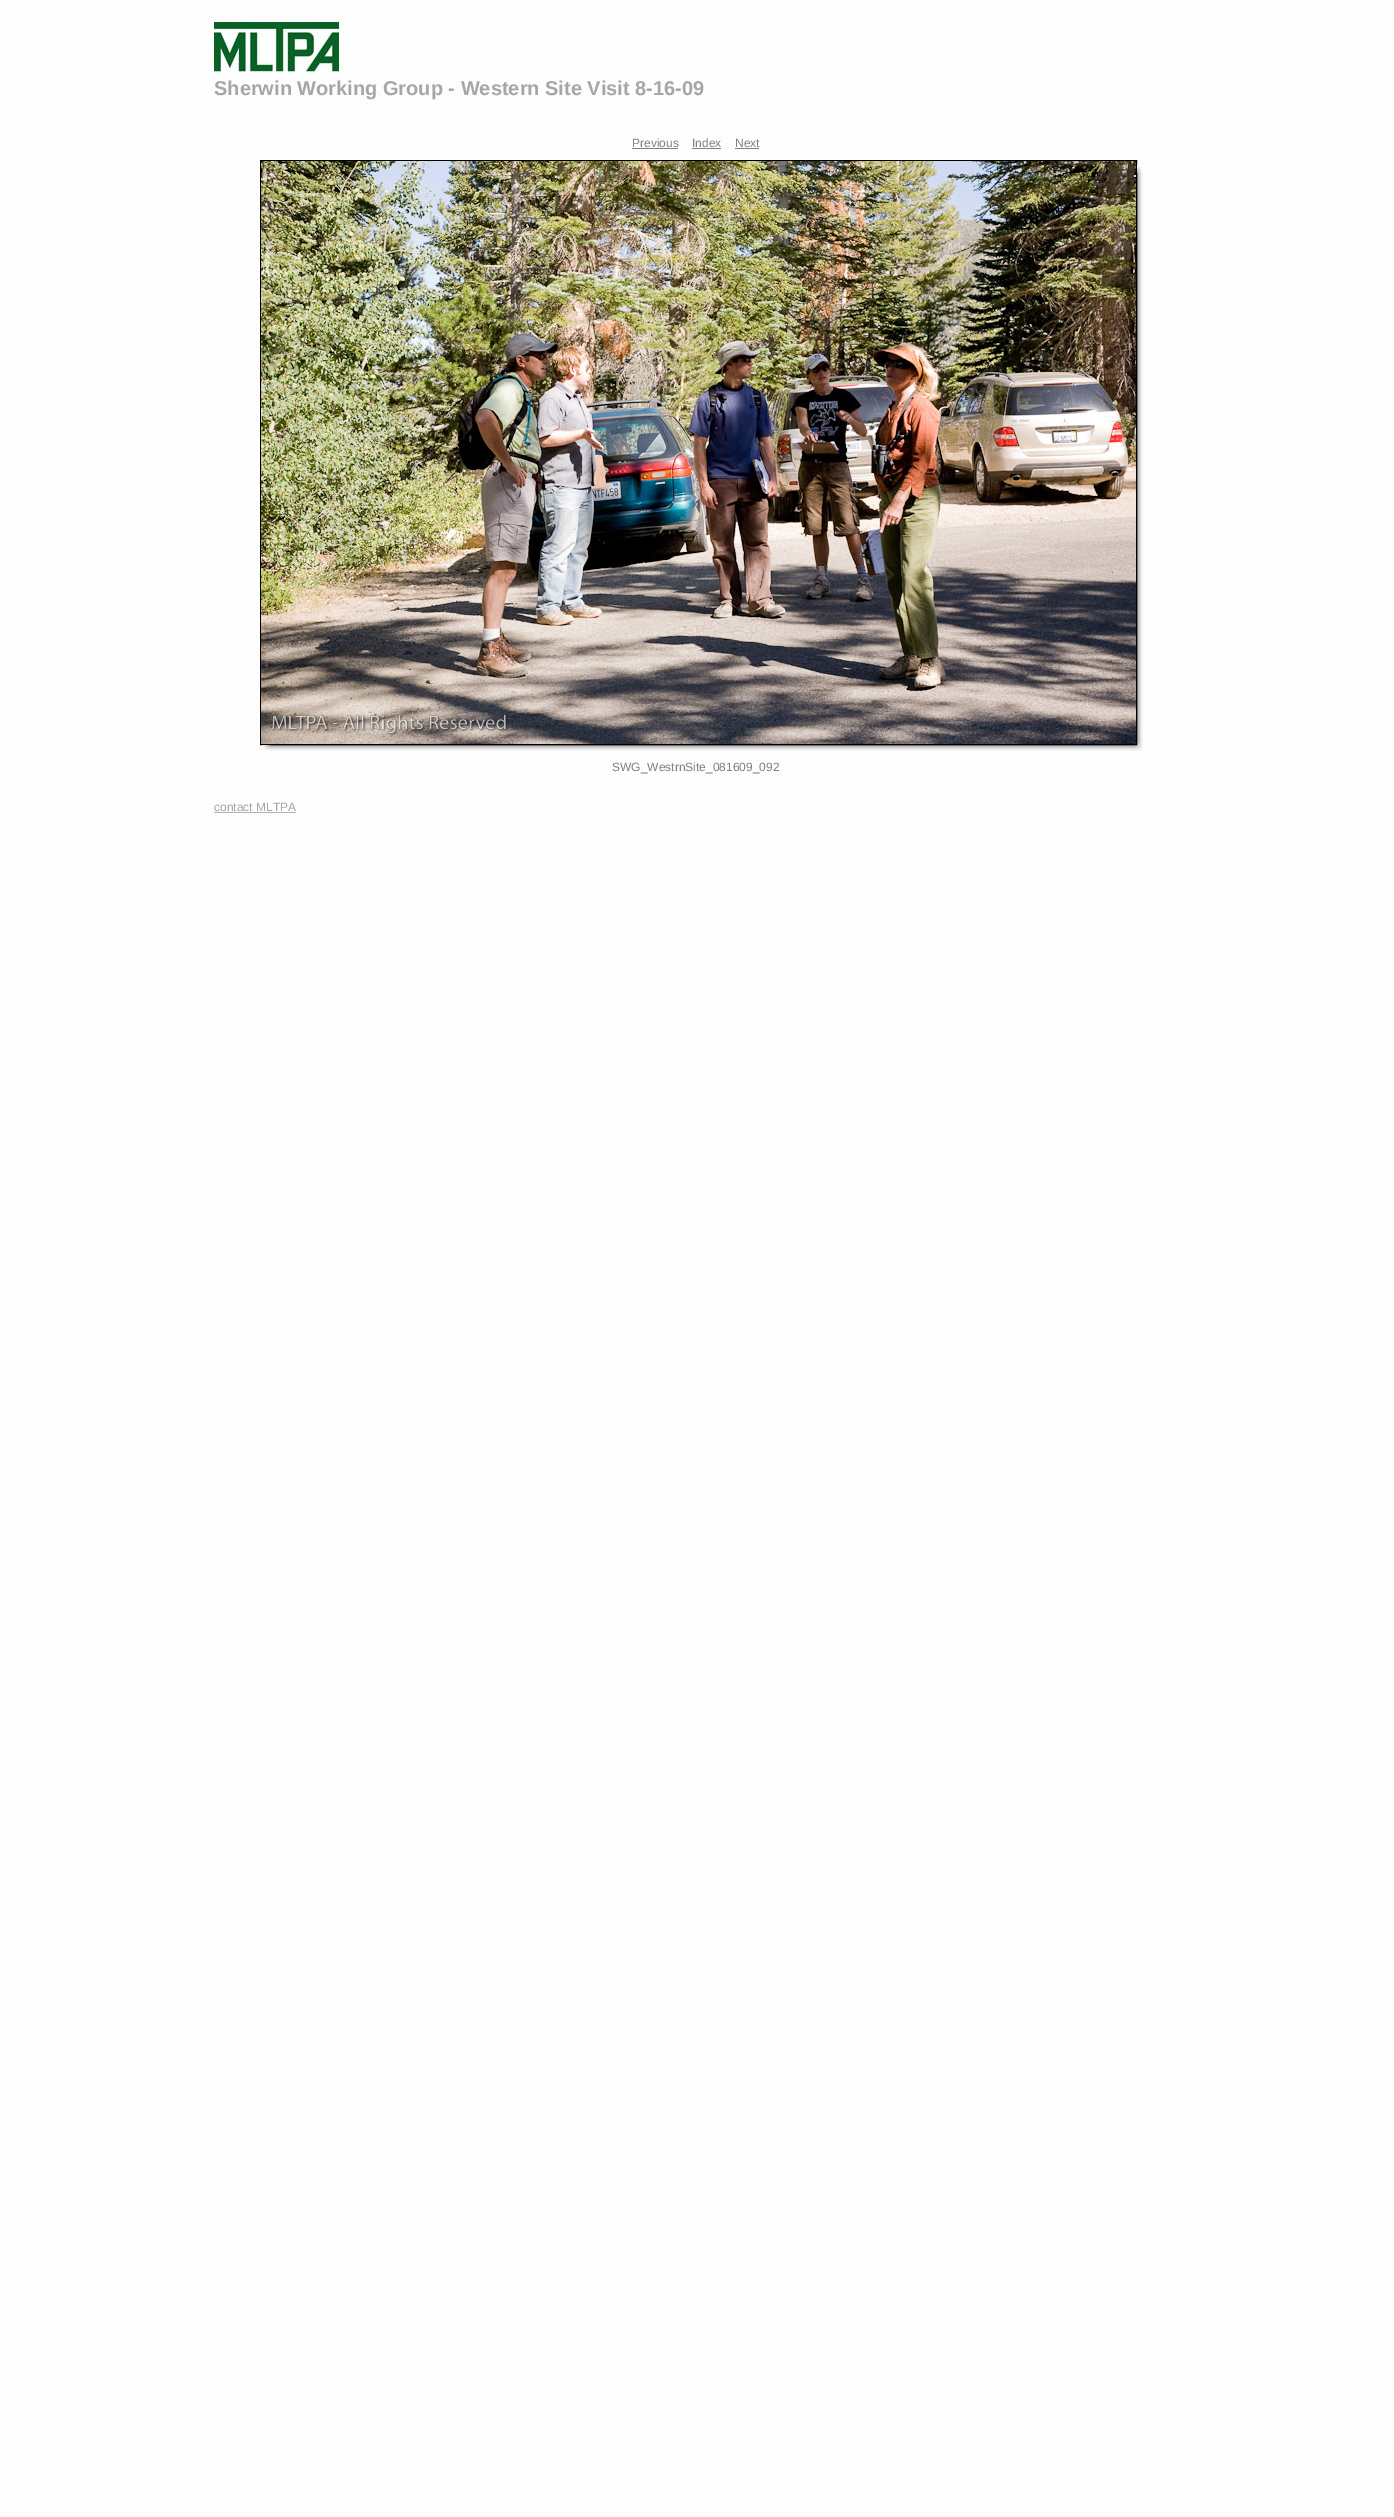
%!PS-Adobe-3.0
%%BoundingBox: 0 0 1394 2517
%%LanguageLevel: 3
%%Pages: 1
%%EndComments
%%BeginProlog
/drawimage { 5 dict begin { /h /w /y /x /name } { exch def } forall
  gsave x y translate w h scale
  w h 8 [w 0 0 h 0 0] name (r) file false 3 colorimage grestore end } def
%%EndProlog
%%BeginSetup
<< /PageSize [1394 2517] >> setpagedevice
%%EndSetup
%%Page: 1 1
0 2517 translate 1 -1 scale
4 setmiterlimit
0.992 setgray
0 0 1394 2517 rectfill
(images/1.raw) 214 20 125 56 drawimage
0.502 setgray
632 148 46 1 rectfill
692 148 29 1 rectfill
735 148 24 1 rectfill
(images/2.raw) 270 173 873 578 drawimage
0 setgray
260.5 160.5 876 584 rectstroke
(images/3.raw) 261 161 875 583 drawimage
(images/4.raw) 1137 165 5 8 drawimage
(images/5.raw) 262 745 8 5 drawimage
0.702 setgray
214 812 82 1 rectfill
/LiberationSans-Bold [20 0 0 -20 0 0] selectfont
0.651 setgray
214 95 moveto (Sherwin Working Group - Western Site Visit 8-16-09) show
/LiberationSans-Regular [12 0 0 -12 0 0] selectfont
0.502 setgray
632 147 moveto (Previous) show
692 147 moveto (Index) show
735 147 moveto (Next) show
612 771 moveto (SWG_WestrnSite_081609_092) show
0.651 setgray
214 811 moveto (contact MLTPA) show
showpage
%%EOF
